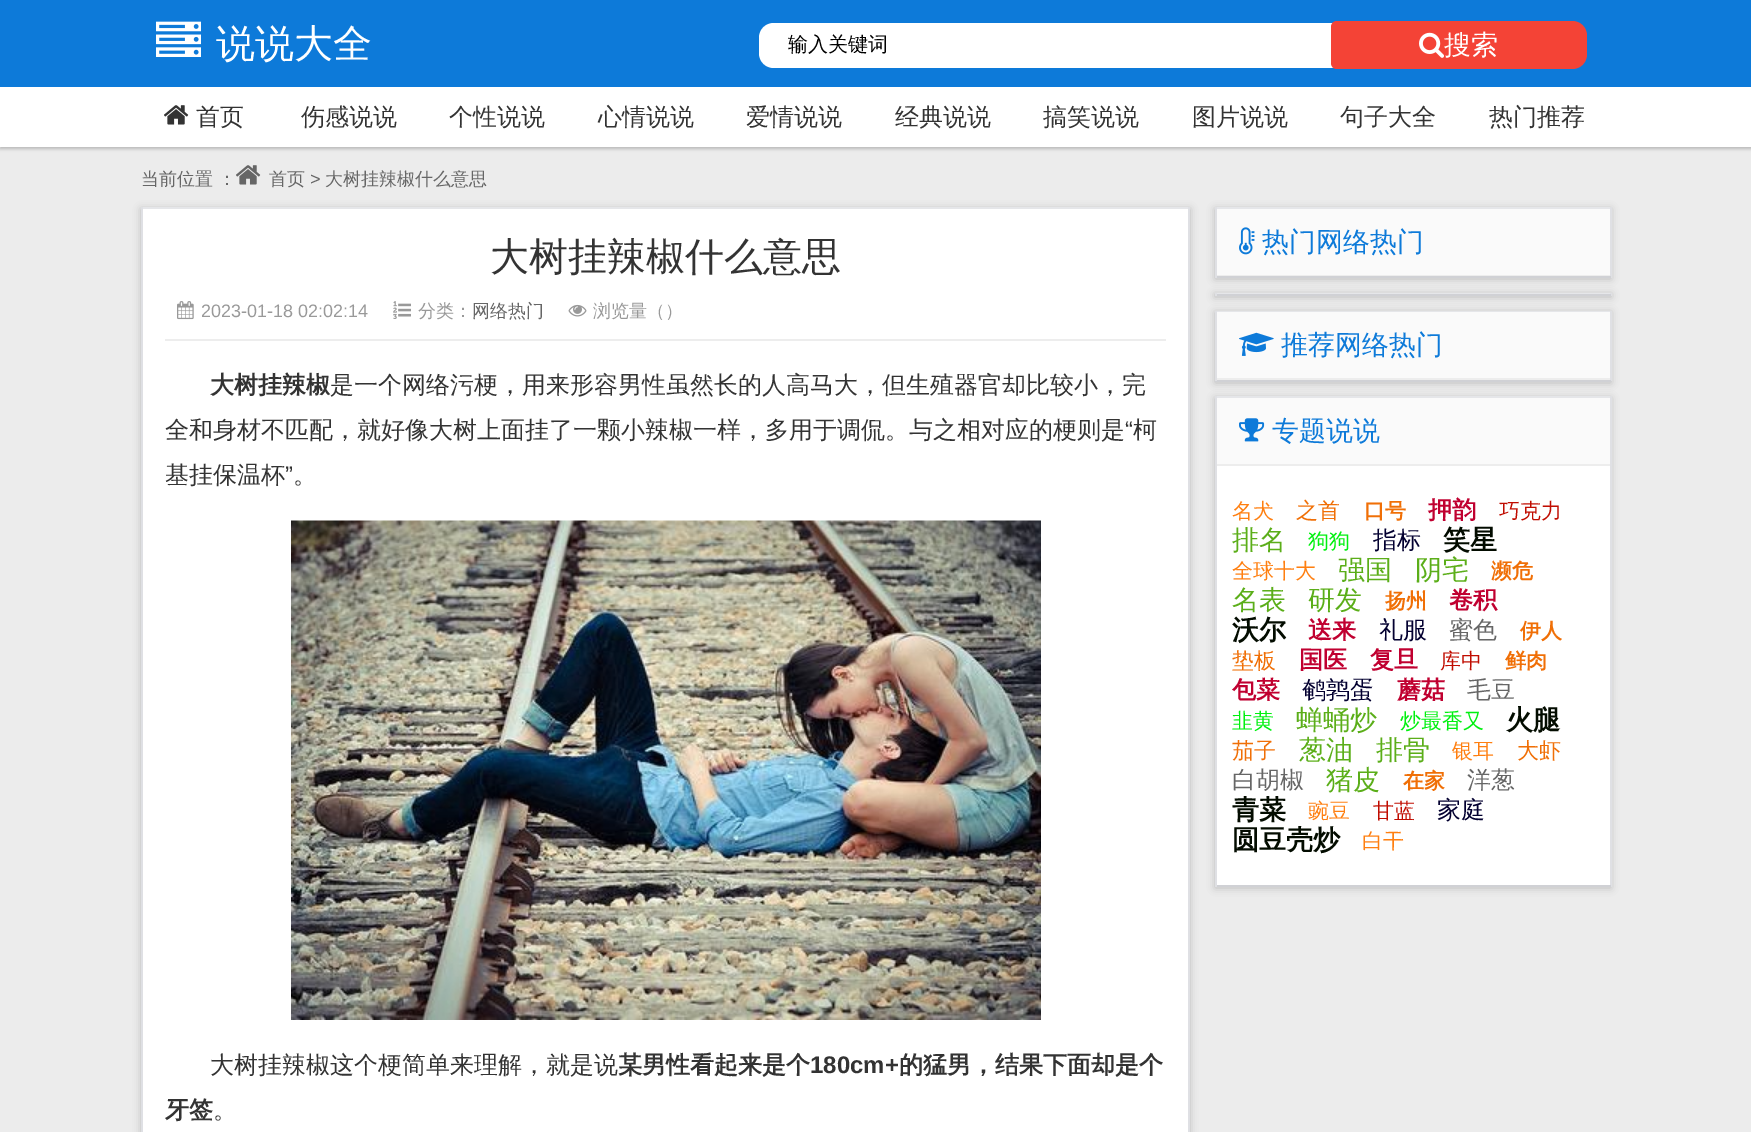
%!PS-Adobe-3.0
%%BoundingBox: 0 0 1751 1132
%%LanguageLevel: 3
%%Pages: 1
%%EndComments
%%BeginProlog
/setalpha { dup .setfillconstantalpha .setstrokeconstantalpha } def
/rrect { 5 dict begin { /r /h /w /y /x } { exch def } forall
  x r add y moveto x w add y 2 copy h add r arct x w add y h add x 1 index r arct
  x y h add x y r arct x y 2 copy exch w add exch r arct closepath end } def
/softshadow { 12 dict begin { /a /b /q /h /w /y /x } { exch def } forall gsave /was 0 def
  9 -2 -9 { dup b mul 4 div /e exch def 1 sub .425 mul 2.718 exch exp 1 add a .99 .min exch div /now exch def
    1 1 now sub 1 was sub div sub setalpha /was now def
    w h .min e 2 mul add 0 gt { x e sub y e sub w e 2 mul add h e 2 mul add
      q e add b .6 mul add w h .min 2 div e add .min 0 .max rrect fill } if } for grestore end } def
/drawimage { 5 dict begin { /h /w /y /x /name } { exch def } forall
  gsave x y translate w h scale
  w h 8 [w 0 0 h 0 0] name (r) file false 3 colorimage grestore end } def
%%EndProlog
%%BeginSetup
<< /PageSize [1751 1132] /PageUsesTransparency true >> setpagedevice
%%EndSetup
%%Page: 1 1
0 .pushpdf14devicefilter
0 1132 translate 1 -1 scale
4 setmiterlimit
0.925 setgray
0 0 1751 1132 rectfill
0 setgray
0 2 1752 147 0 1.5 0.2 softshadow
1 setgray
0 87 1751 60 rectfill
0.051 0.478 0.851 setrgbcolor
0 0 1751 87 rectfill
(images/1.raw) 156 21 45 36 drawimage
1 setgray
newpath 774 23 moveto 1332 23 lineto 1335.5 23 1338 25.5 1338 29 curveto 1338 62 lineto 1338 65.5 1335.5 68 1332 68 curveto 774 68 lineto 765.5 68 759 61.5 759 53 curveto 759 38 lineto 759 29.5 765.5 23 774 23 curveto closepath fill
0.957 0.263 0.212 setrgbcolor
newpath 1337 21 moveto 1572 21 lineto 1580.5 21 1587 27.5 1587 36 curveto 1587 54 lineto 1587 62.5 1580.5 69 1572 69 curveto 1337 69 lineto 1333.5 69 1331 66.5 1331 63 curveto 1331 27 lineto 1331 23.5 1333.5 21 1337 21 curveto closepath fill
(images/2.raw) 1419 32 25 26 drawimage
(images/3.raw) 164 105 25 20 drawimage
(images/4.raw) 236 165 25 20 drawimage
0 setgray
141 209 1049 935 0 4 0.2 softshadow
1 setgray
143 209 1045 923 rectfill
0.898 0.902 0.914 setrgbcolor
141 207 1049 2 rectfill
0.875 0.878 0.894 setrgbcolor
1188 207 2 925 rectfill
141 207 2 925 rectfill
0.929 setgray
165 339 1001 2 rectfill
(images/5.raw) 177 301 17 19 drawimage
(images/6.raw) 393 301 18 18 drawimage
(images/7.raw) 568 304 19 13 drawimage
(images/8.raw) 291 520 750 500 drawimage
0 setgray
1215 209 396 70 0 4 0.2 softshadow
0.898 0.902 0.914 setrgbcolor
1215 207 396 2 rectfill
0.875 0.878 0.894 setrgbcolor
1610 207 2 71 rectfill
0.816 0.82 0.835 setrgbcolor
1215 276 396 2 rectfill
0.875 0.878 0.894 setrgbcolor
1215 207 2 71 rectfill
0.98 setgray
1217 209 393 66 rectfill
0.929 setgray
1217 275 393 1 rectfill
(images/9.raw) 1239 227 16 28 drawimage
0 setgray
1215 294 396 3 0 4 0.2 softshadow
0.898 0.902 0.914 setrgbcolor
1215 293 396 1 rectfill
0.875 0.878 0.894 setrgbcolor
1610 293 2 3 rectfill
0.816 0.82 0.835 setrgbcolor
1215 294 396 2 rectfill
0.875 0.878 0.894 setrgbcolor
1215 293 2 3 rectfill
0 setgray
1215 312 396 71 0 4 0.2 softshadow
0.898 0.902 0.914 setrgbcolor
1215 311 396 1 rectfill
0.875 0.878 0.894 setrgbcolor
1610 311 2 70 rectfill
0.816 0.82 0.835 setrgbcolor
1215 380 396 2 rectfill
0.875 0.878 0.894 setrgbcolor
1215 311 2 70 rectfill
0.98 setgray
1217 312 393 66 rectfill
0.929 setgray
1217 378 393 2 rectfill
(images/10.raw) 1239 332 35 24 drawimage
0 setgray
1215 398 396 490 0 4 0.2 softshadow
1 setgray
1217 466 393 419 rectfill
0.898 0.902 0.914 setrgbcolor
1215 396 396 2 rectfill
0.875 0.878 0.894 setrgbcolor
1610 396 2 491 rectfill
0.816 0.82 0.835 setrgbcolor
1215 885 396 2 rectfill
0.875 0.878 0.894 setrgbcolor
1215 396 2 491 rectfill
0.98 setgray
1217 398 393 66 rectfill
0.929 setgray
1217 464 393 2 rectfill
(images/11.raw) 1239 418 26 24 drawimage
/WenQuanYiZenHei-Medium [39 0 0 -39 0 0] selectfont
1 setgray
216 57 moveto (说说大全) show
/WenQuanYiZenHei-Medium [20 0 0 -20 0 0] selectfont
0 setgray
788 51 moveto (输入关键词) show
/WenQuanYiZenHei-Medium [27 0 0 -27 0 0] selectfont
1 setgray
1444 54 moveto (搜索) show
/WenQuanYiZenHei-Medium [24 0 0 -24 0 0] selectfont
0.2 setgray
196 125 moveto (首页) show
301 125 moveto (伤感说说) show
449 125 moveto (个性说说) show
598 125 moveto (心情说说) show
746 125 moveto (爱情说说) show
895 125 moveto (经典说说) show
1043 125 moveto (搞笑说说) show
1192 125 moveto (图片说说) show
1340 125 moveto (句子大全) show
1489 125 moveto (热门推荐) show
/WenQuanYiZenHei-Medium [18 0 0 -18 0 0] selectfont
0.4 setgray
141 185 moveto (当前位置 ：) show
269 185 moveto (首页) show
/LiberationSans-Regular [18 0 0 -18 0 0] selectfont
310 185 moveto (>) show
/WenQuanYiZenHei-Medium [18 0 0 -18 0 0] selectfont
325 185 moveto (大树挂辣椒什么意思) show
/WenQuanYiZenHei-Medium [39 0 0 -39 0 0] selectfont
0.2 setgray
490 270 moveto (大树挂辣椒什么意思) show
/LiberationSans-Regular [18 0 0 -18 0 0] selectfont
0.6 setgray
201 317 moveto (2023-01-18 02:02:14) show
/WenQuanYiZenHei-Medium [18 0 0 -18 0 0] selectfont
418 317 moveto (分类：) show
0.4 setgray
472 317 moveto (网络热门) show
0.6 setgray
593 317 moveto (浏览量（）) show
/WenQuanYiZenHei-Bold [24 0 0 -24 0 0] selectfont
0.2 setgray
210 393 moveto (大树挂辣椒) show
/WenQuanYiZenHei-Medium [24 0 0 -24 0 0] selectfont
330 393 moveto (是一个网络污梗，用来形容男性虽然长的人高马大，但生殖器官却比较小，完) show
165 438 moveto (全和身材不匹配，就好像大树上面挂了一颗小辣椒一样，多用于调侃。与之相对应的梗则是) show
/LiberationSans-Regular [24 0 0 -24 0 0] selectfont
1125 438 moveto (“) show
/WenQuanYiZenHei-Medium [24 0 0 -24 0 0] selectfont
1133 438 moveto (柯) show
165 483 moveto (基挂保温杯) show
/LiberationSans-Regular [24 0 0 -24 0 0] selectfont
285 483 moveto (”) show
/WenQuanYiZenHei-Medium [24 0 0 -24 0 0] selectfont
293 483 moveto (。) show
210 1073 moveto (大树挂辣椒这个梗简单来理解，就是说) show
/WenQuanYiZenHei-Bold [24 0 0 -24 0 0] selectfont
618 1073 moveto (某男性看起来是个) show
/LiberationSans-Bold [24 0 0 -24 0 0] selectfont
810 1073 moveto (180cm+) show
/WenQuanYiZenHei-Bold [24 0 0 -24 0 0] selectfont
899 1073 moveto (的猛男，结果下面却是个) show
165 1118 moveto (牙签) show
/WenQuanYiZenHei-Medium [24 0 0 -24 0 0] selectfont
213 1118 moveto (。) show
/WenQuanYiZenHei-Medium [27 0 0 -27 0 0] selectfont
0.051 0.478 0.851 setrgbcolor
1262 251 moveto (热门网络热门) show
1281 354 moveto (推荐网络热门) show
1272 440 moveto (专题说说) show
/WenQuanYiZenHei-Medium [21 0 0 -21 0 0] selectfont
1 0.498 0.063 setrgbcolor
1232 518 moveto (名犬) show
/WenQuanYiZenHei-Medium [22 0 0 -22 0 0] selectfont
0.941 0.435 0.024 setrgbcolor
1296 518 moveto (之首) show
/WenQuanYiZenHei-Bold [21 0 0 -21 0 0] selectfont
1364 518 moveto (口号) show
/WenQuanYiZenHei-Bold [24 0 0 -24 0 0] selectfont
0.753 0 0.188 setrgbcolor
1428 518 moveto (押韵) show
/WenQuanYiZenHei-Medium [21 0 0 -21 0 0] selectfont
0.753 0.047 0 setrgbcolor
1499 518 moveto (巧克力) show
/WenQuanYiZenHei-Medium [27 0 0 -27 0 0] selectfont
0.357 0.682 0.098 setrgbcolor
1232 549 moveto (排名) show
/WenQuanYiZenHei-Medium [21 0 0 -21 0 0] selectfont
0 0.941 0.059 setrgbcolor
1308 548 moveto (狗狗) show
/WenQuanYiZenHei-Medium [24 0 0 -24 0 0] selectfont
0.012 0 0.188 setrgbcolor
1373 548 moveto (指标) show
/WenQuanYiZenHei-Bold [27 0 0 -27 0 0] selectfont
0.012 0.047 0 setrgbcolor
1443 549 moveto (笑星) show
/WenQuanYiZenHei-Medium [21 0 0 -21 0 0] selectfont
1 0.498 0.063 setrgbcolor
1232 578 moveto (全球十大) show
/WenQuanYiZenHei-Medium [27 0 0 -27 0 0] selectfont
0.357 0.682 0.098 setrgbcolor
1338 579 moveto (强国) show
1415 579 moveto (阴宅) show
/WenQuanYiZenHei-Bold [21 0 0 -21 0 0] selectfont
0.941 0.435 0.024 setrgbcolor
1491 578 moveto (濒危) show
/WenQuanYiZenHei-Medium [27 0 0 -27 0 0] selectfont
0.357 0.682 0.098 setrgbcolor
1232 609 moveto (名表) show
1308 609 moveto (研发) show
/WenQuanYiZenHei-Bold [21 0 0 -21 0 0] selectfont
0.941 0.435 0.024 setrgbcolor
1385 608 moveto (扬州) show
/WenQuanYiZenHei-Bold [24 0 0 -24 0 0] selectfont
0.753 0 0.188 setrgbcolor
1449 608 moveto (卷积) show
/WenQuanYiZenHei-Bold [27 0 0 -27 0 0] selectfont
0.012 0.047 0 setrgbcolor
1232 639 moveto (沃尔) show
/WenQuanYiZenHei-Bold [24 0 0 -24 0 0] selectfont
0.753 0 0.188 setrgbcolor
1308 638 moveto (送来) show
/WenQuanYiZenHei-Medium [24 0 0 -24 0 0] selectfont
0.012 0 0.188 setrgbcolor
1379 638 moveto (礼服) show
0.4 setgray
1449 638 moveto (蜜色) show
/WenQuanYiZenHei-Bold [21 0 0 -21 0 0] selectfont
0.941 0.435 0.024 setrgbcolor
1520 638 moveto (伊人) show
/WenQuanYiZenHei-Medium [22 0 0 -22 0 0] selectfont
1232 668 moveto (垫板) show
/WenQuanYiZenHei-Bold [24 0 0 -24 0 0] selectfont
0.753 0 0.188 setrgbcolor
1299 668 moveto (国医) show
1370 668 moveto (复旦) show
/WenQuanYiZenHei-Medium [21 0 0 -21 0 0] selectfont
0.753 0.047 0 setrgbcolor
1440 668 moveto (库中) show
/WenQuanYiZenHei-Bold [21 0 0 -21 0 0] selectfont
0.941 0.435 0.024 setrgbcolor
1505 668 moveto (鲜肉) show
/WenQuanYiZenHei-Bold [24 0 0 -24 0 0] selectfont
0.753 0 0.188 setrgbcolor
1232 698 moveto (包菜) show
/WenQuanYiZenHei-Medium [24 0 0 -24 0 0] selectfont
0.012 0 0.188 setrgbcolor
1302 698 moveto (鹌鹑蛋) show
/WenQuanYiZenHei-Bold [24 0 0 -24 0 0] selectfont
0.753 0 0.188 setrgbcolor
1397 698 moveto (蘑菇) show
/WenQuanYiZenHei-Medium [24 0 0 -24 0 0] selectfont
0.4 setgray
1467 698 moveto (毛豆) show
/WenQuanYiZenHei-Medium [21 0 0 -21 0 0] selectfont
0 0.941 0.059 setrgbcolor
1232 728 moveto (韭黄) show
/WenQuanYiZenHei-Medium [27 0 0 -27 0 0] selectfont
0.357 0.682 0.098 setrgbcolor
1296 729 moveto (蝉蛹炒) show
/WenQuanYiZenHei-Medium [21 0 0 -21 0 0] selectfont
0 0.941 0.059 setrgbcolor
1400 728 moveto (炒最香又) show
/WenQuanYiZenHei-Bold [27 0 0 -27 0 0] selectfont
0.012 0.047 0 setrgbcolor
1506 729 moveto (火腿) show
/WenQuanYiZenHei-Medium [22 0 0 -22 0 0] selectfont
0.941 0.435 0.024 setrgbcolor
1232 758 moveto (茄子) show
/WenQuanYiZenHei-Medium [27 0 0 -27 0 0] selectfont
0.357 0.682 0.098 setrgbcolor
1299 759 moveto (葱油) show
1376 759 moveto (排骨) show
/WenQuanYiZenHei-Medium [21 0 0 -21 0 0] selectfont
1 0.498 0.063 setrgbcolor
1452 758 moveto (银耳) show
/WenQuanYiZenHei-Medium [22 0 0 -22 0 0] selectfont
0.941 0.435 0.024 setrgbcolor
1517 758 moveto (大虾) show
/WenQuanYiZenHei-Medium [24 0 0 -24 0 0] selectfont
0.4 setgray
1232 788 moveto (白胡椒) show
/WenQuanYiZenHei-Medium [27 0 0 -27 0 0] selectfont
0.357 0.682 0.098 setrgbcolor
1326 789 moveto (猪皮) show
/WenQuanYiZenHei-Bold [21 0 0 -21 0 0] selectfont
0.941 0.435 0.024 setrgbcolor
1403 788 moveto (在家) show
/WenQuanYiZenHei-Medium [24 0 0 -24 0 0] selectfont
0.4 setgray
1467 788 moveto (洋葱) show
/WenQuanYiZenHei-Bold [27 0 0 -27 0 0] selectfont
0.012 0.047 0 setrgbcolor
1232 819 moveto (青菜) show
/WenQuanYiZenHei-Medium [21 0 0 -21 0 0] selectfont
1 0.498 0.063 setrgbcolor
1308 818 moveto (豌豆) show
0.753 0.047 0 setrgbcolor
1373 818 moveto (甘蓝) show
/WenQuanYiZenHei-Medium [24 0 0 -24 0 0] selectfont
0.012 0 0.188 setrgbcolor
1437 818 moveto (家庭) show
/WenQuanYiZenHei-Bold [27 0 0 -27 0 0] selectfont
0.012 0.047 0 setrgbcolor
1232 849 moveto (圆豆壳炒) show
/WenQuanYiZenHei-Medium [21 0 0 -21 0 0] selectfont
1 0.498 0.063 setrgbcolor
1362 848 moveto (白干) show
.poppdf14devicefilter showpage
%%EOF
